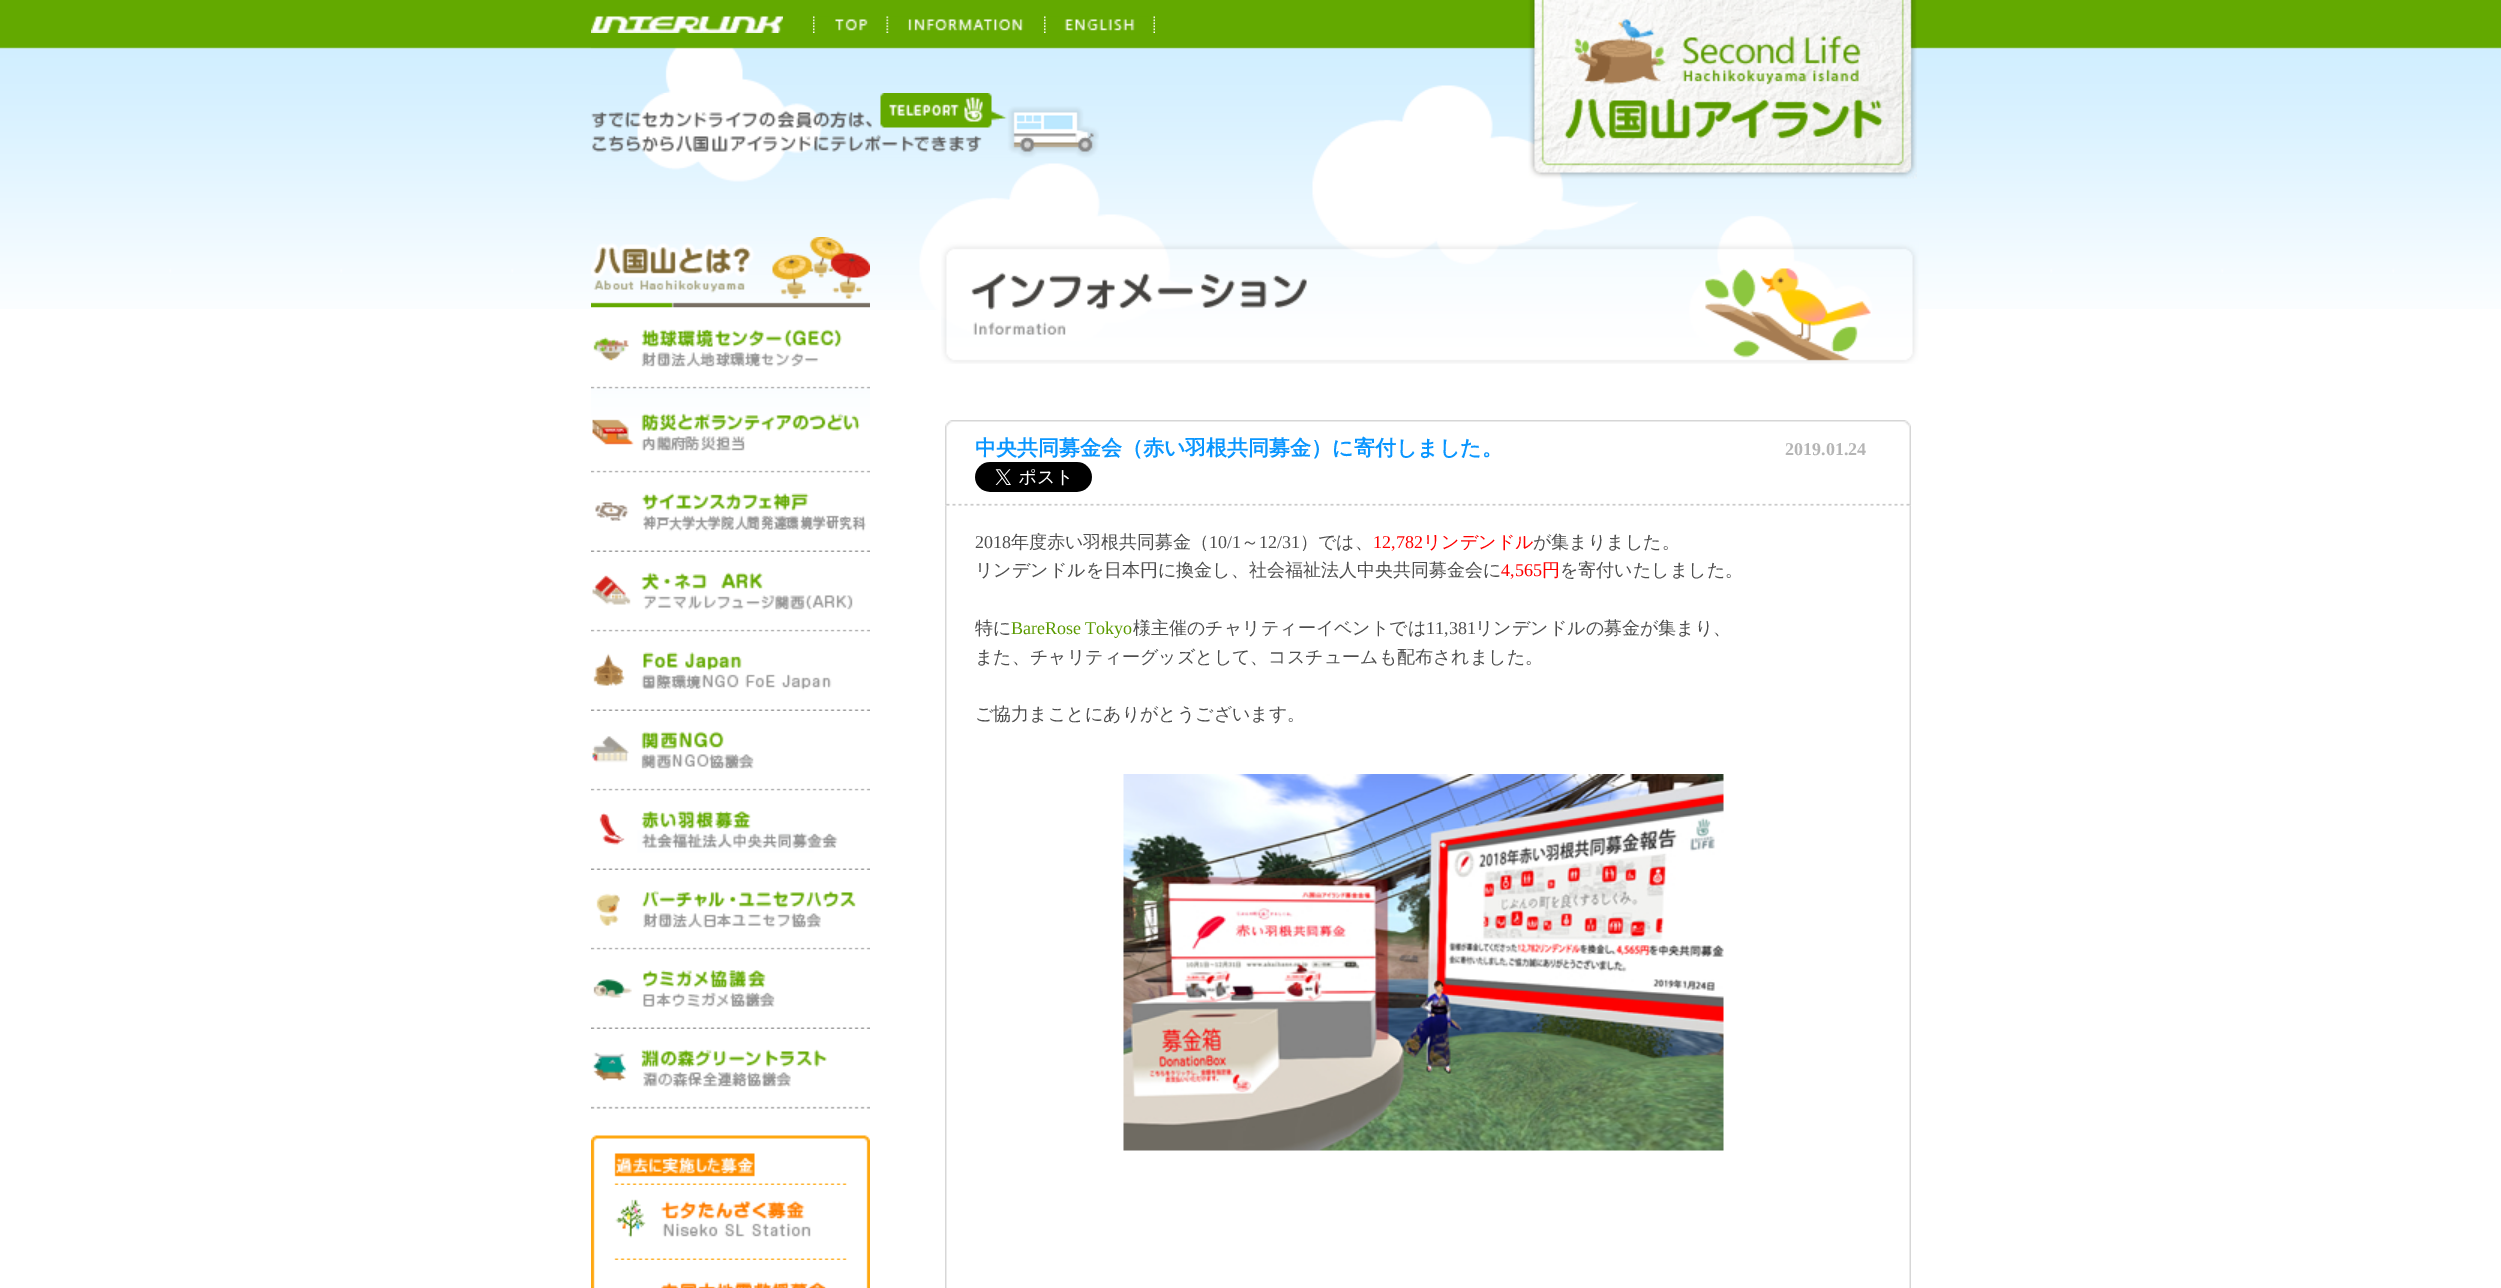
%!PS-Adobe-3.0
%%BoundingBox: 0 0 2501 1288
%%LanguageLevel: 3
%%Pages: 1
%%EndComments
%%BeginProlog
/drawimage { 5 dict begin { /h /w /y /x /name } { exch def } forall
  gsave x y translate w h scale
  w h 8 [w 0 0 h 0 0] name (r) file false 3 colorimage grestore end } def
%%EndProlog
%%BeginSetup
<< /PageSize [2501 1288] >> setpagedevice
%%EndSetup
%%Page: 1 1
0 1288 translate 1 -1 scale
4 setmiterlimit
1 setgray
0 0 2501 1288 rectfill
(images/1.raw) 0 0 2501 309 drawimage
(images/2.raw) 591 47 1320 263 drawimage
(images/3.raw) 591 16 192 17 drawimage
(images/4.raw) 813 16 55 17 drawimage
(images/5.raw) 886 16 138 17 drawimage
(images/6.raw) 1044 16 111 17 drawimage
(images/7.raw) 1528 0 389 179 drawimage
(images/8.raw) 591 93 508 65 drawimage
(images/9.raw) 591 237 279 71 drawimage
(images/10.raw) 591 307 279 82 drawimage
(images/11.raw) 591 388 279 85 drawimage
(images/12.raw) 591 472 279 80 drawimage
(images/13.raw) 591 572 279 60 drawimage
(images/14.raw) 591 631 279 80 drawimage
(images/15.raw) 591 731 279 60 drawimage
(images/16.raw) 591 790 279 80 drawimage
(images/17.raw) 591 890 279 60 drawimage
(images/18.raw) 591 949 279 80 drawimage
(images/19.raw) 591 1049 279 60 drawimage
(images/20.raw) 591 1135 279 50 drawimage
(images/21.raw) 591 1185 279 75 drawimage
(images/22.raw) 591 1260 279 28 drawimage
(images/23.raw) 941 239 978 125 drawimage
(images/26.raw) 945 505 966 783 drawimage
(images/24.raw) 945 420 966 86 drawimage
(images/25.raw) 975 462 117 30 drawimage
(images/27.raw) 1123 774 601 377 drawimage
/WenQuanYiZenHei-Bold [21 0 0 -21 0 0] selectfont
0.035 0.588 1 setrgbcolor
975 455 moveto (中央共同募金会（赤い羽根共同募金）に寄付しました。) show
/LiberationSerif-Bold [18 0 0 -18 0 0] selectfont
0.71 setgray
1785 455 moveto (2019.01.24) show
/LiberationSerif-Regular [18 0 0 -18 0 0] selectfont
0.306 setgray
975 548 moveto (2018) show
/WenQuanYiZenHei-Medium [18 0 0 -18 0 0] selectfont
1011 548 moveto (年度赤い羽根共同募金（) show
/LiberationSerif-Regular [18 0 0 -18 0 0] selectfont
1209 548 moveto (10/1) show
/WenQuanYiZenHei-Medium [18 0 0 -18 0 0] selectfont
1241 548 moveto (～) show
/LiberationSerif-Regular [18 0 0 -18 0 0] selectfont
1259 548 moveto (12/31) show
/WenQuanYiZenHei-Medium [18 0 0 -18 0 0] selectfont
1300 548 moveto (）では、) show
/LiberationSerif-Regular [18 0 0 -18 0 0] selectfont
1 0 0 setrgbcolor
1373 548 moveto (12,782) show
/WenQuanYiZenHei-Medium [18 0 0 -18 0 0] selectfont
1423 548 moveto (リンデンドル) show
0.306 setgray
1533 548 moveto (が集まりました。) show
975 576 moveto (リンデンドルを日本円に換金し、社会福祉法人中央共同募金会に) show
/LiberationSerif-Regular [18 0 0 -18 0 0] selectfont
1 0 0 setrgbcolor
1501 576 moveto (4,565) show
/WenQuanYiZenHei-Medium [18 0 0 -18 0 0] selectfont
1542 576 moveto (円) show
0.306 setgray
1560 576 moveto (を寄付いたしました。) show
975 634 moveto (特に) show
/LiberationSerif-Regular [18 0 0 -18 0 0] selectfont
0.353 0.604 0 setrgbcolor
1011 634 moveto (BareRose Tokyo) show
/WenQuanYiZenHei-Medium [18 0 0 -18 0 0] selectfont
0.306 setgray
1133 634 moveto (様主催のチャリティーイベントでは) show
/LiberationSerif-Regular [18 0 0 -18 0 0] selectfont
1426 634 moveto (11,381) show
/WenQuanYiZenHei-Medium [18 0 0 -18 0 0] selectfont
1475 634 moveto (リンデンドルの募金が集まり、) show
975 663 moveto (また、チャリティーグッズとして、コスチュームも配布されました。) show
975 720 moveto (ご協力まことにありがとうございます。) show
showpage
%%EOF
